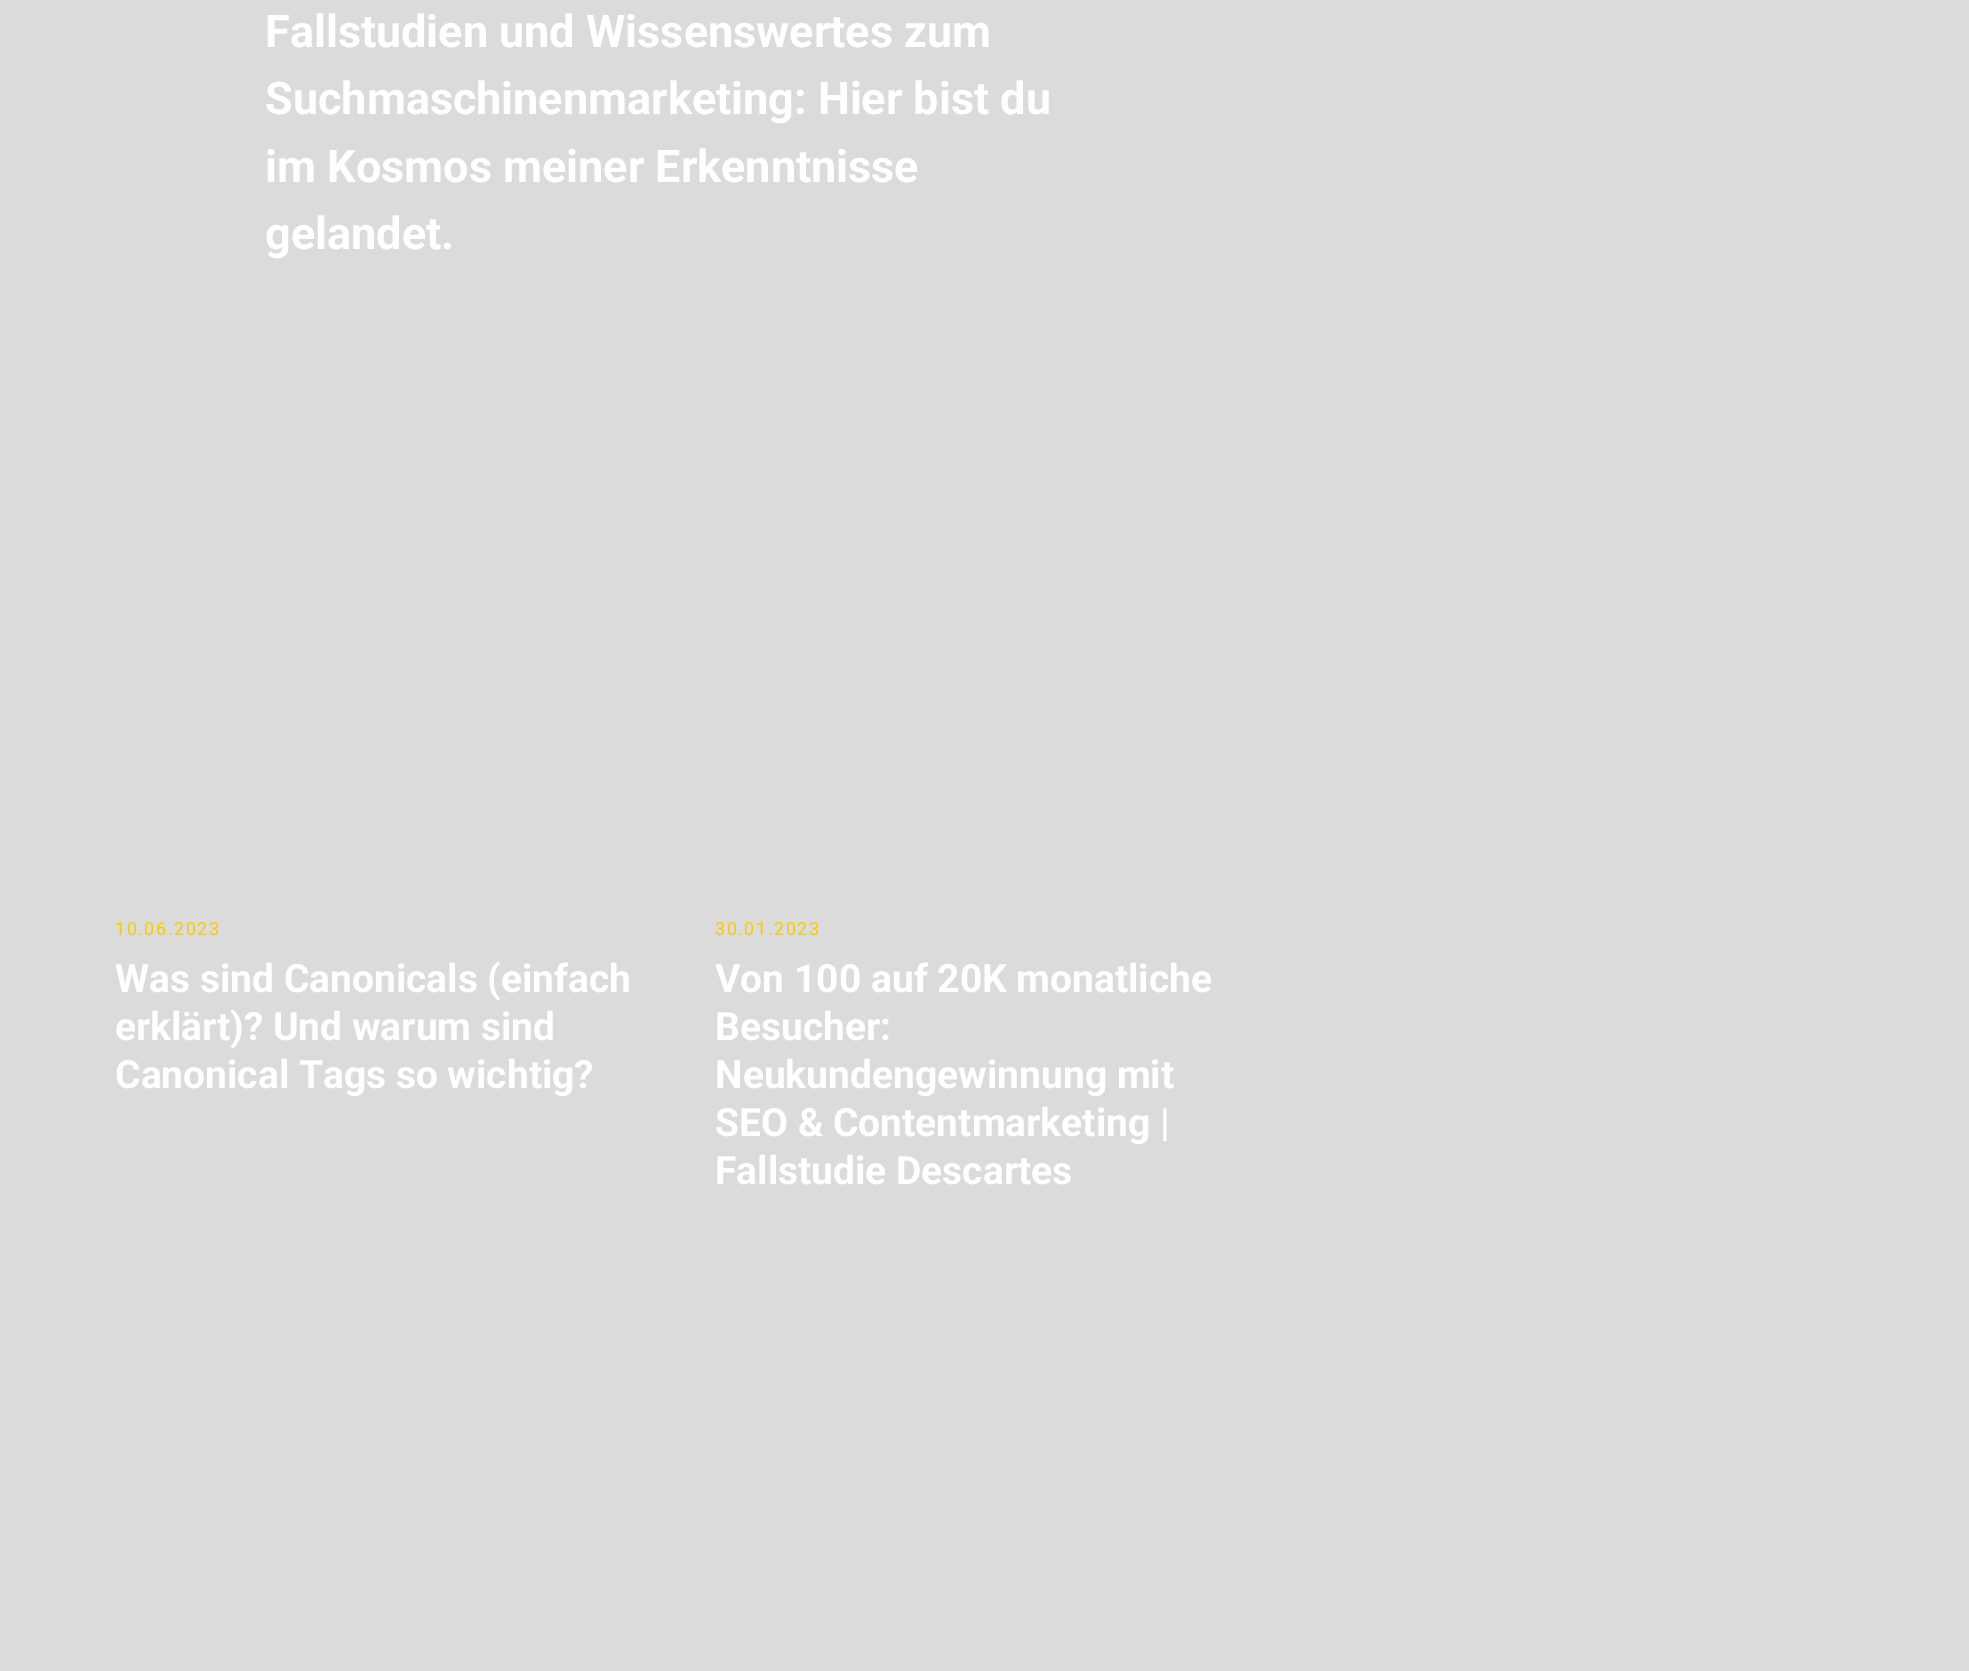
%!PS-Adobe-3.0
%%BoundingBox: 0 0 1969 1671
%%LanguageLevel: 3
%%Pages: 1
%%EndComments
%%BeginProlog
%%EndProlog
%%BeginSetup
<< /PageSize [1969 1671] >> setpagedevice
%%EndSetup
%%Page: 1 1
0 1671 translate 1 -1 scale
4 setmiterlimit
0.859 setgray
0 0 1969 1671 rectfill
/Roboto-Bold [45 0 0 -45 0 0] selectfont
1 setgray
265 47 moveto (Fallstudien und Wissenswertes zum) show
265 114 moveto (Suchmaschinenmarketing: Hier bist du) show
265 182 moveto (im Kosmos meiner Erkenntnisse) show
265 249 moveto (gelandet.) show
/Roboto-Regular [18 0 0 -18 0 0] selectfont
0.976 0.8 0 setrgbcolor
115 935 moveto 1.5 0 (10.06.2023) ashow
/Roboto-Bold [39 0 0 -39 0 0] selectfont
1 setgray
115 992 moveto (Was sind Canonicals \(einfach) show
115 1040 moveto (erklärt\)? Und warum sind) show
115 1088 moveto (Canonical Tags so wichtig?) show
/Roboto-Regular [18 0 0 -18 0 0] selectfont
0.976 0.8 0 setrgbcolor
715 935 moveto 1.5 0 (30.01.2023) ashow
/Roboto-Bold [39 0 0 -39 0 0] selectfont
1 setgray
715 992 moveto (Von 100 auf 20K monatliche) show
715 1040 moveto (Besucher:) show
715 1088 moveto (Neukundengewinnung mit) show
715 1136 moveto (SEO & Contentmarketing |) show
715 1184 moveto (Fallstudie Descartes) show
showpage
%%EOF
